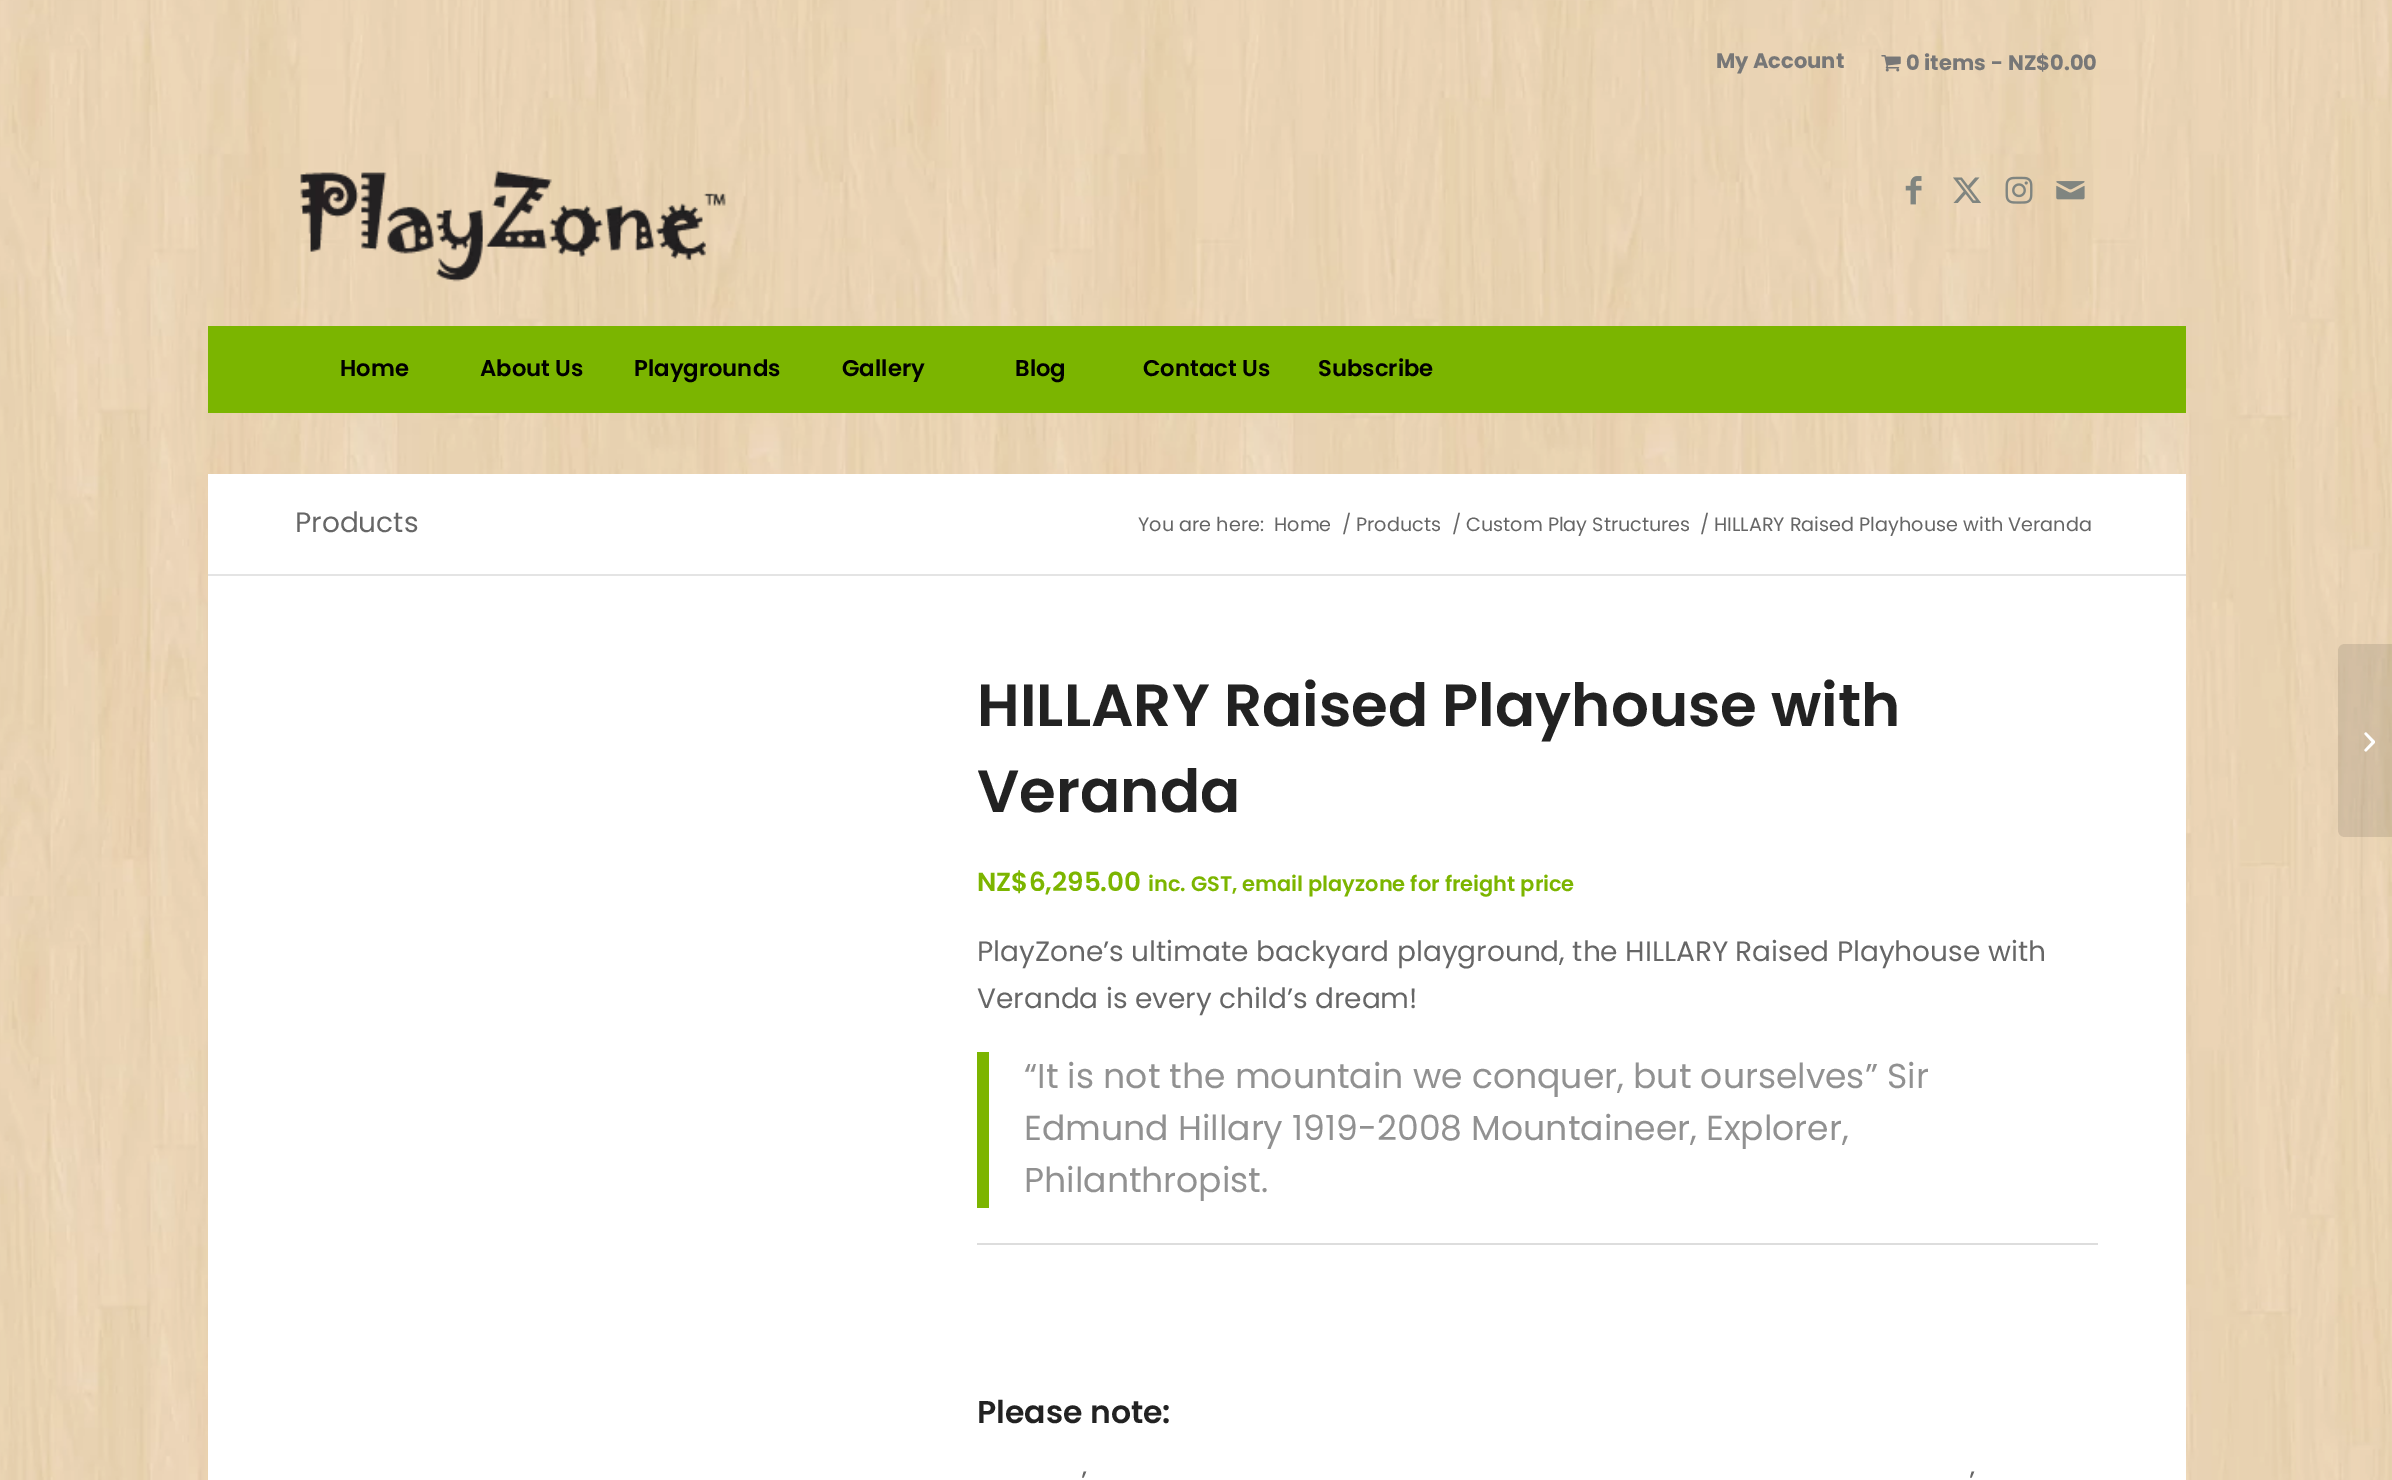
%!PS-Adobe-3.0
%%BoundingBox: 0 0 2392 1480
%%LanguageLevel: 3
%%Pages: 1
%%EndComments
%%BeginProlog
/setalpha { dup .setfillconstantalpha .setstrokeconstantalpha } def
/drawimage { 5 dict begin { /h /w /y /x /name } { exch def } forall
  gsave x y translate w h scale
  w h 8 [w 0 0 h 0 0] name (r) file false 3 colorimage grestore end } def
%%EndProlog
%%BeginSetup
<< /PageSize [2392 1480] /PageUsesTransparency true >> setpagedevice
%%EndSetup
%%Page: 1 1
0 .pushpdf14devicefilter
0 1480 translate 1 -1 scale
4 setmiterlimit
1 setgray
0 0 2392 1480 rectfill
(images/1.raw) 0 0 2392 1480 drawimage
(images/2.raw) 1881 55 20 17 drawimage
(images/3.raw) 300 170 426 112 drawimage
(images/4.raw) 1905 176 17 29 drawimage
(images/5.raw) 1953 177 28 26 drawimage
(images/6.raw) 2005 176 28 28 drawimage
(images/7.raw) 2056 181 29 19 drawimage
0.482 0.71 0 setrgbcolor
208 326 1978 87 rectfill
1 setgray
208 474 1978 100 rectfill
0.894 setgray
208 574 1978 2 rectfill
1 setgray
208 576 1978 904 rectfill
0.486 0.71 0 setrgbcolor
977 1052 12 156 rectfill
0.867 setgray
977 1243 1121 2 rectfill
0.1 setalpha
0 setgray
newpath 2345 644 moveto 2392 644 lineto 2392 837 lineto 2345 837 lineto 2341 837 2338 834 2338 830 curveto 2338 651 lineto 2338 647 2341 644 2345 644 curveto closepath fill
1 setalpha
(images/8.raw) 2364 732 11 20 drawimage
/Poppins-Bold [21 0 0 -21 0 0] selectfont
0.467 setgray
1716 68 moveto (My Account) show
1906 70 moveto (0 items) show
1991 70 moveto (-) show
2008 70 moveto (NZ$0.00) show
/Poppins-SemiBold [22.75 0 0 -22.75 0 0] selectfont
0 setgray
340 376 moveto (Home) show
480 376 moveto (About Us) show
634 376 moveto (Playgrounds) show
842 376 moveto (Gallery) show
1015 376 moveto (Blog) show
1143 376 moveto (Contact Us) show
1318 376 moveto (Subscribe) show
/Poppins-Regular [28 0 0 -28 0 0] selectfont
0.4 setgray
295 532 moveto (Products) show
/Poppins-Regular [19.25 0 0 -19.25 0 0] selectfont
1138 531 moveto (You are here:) show
1274 531 moveto (Home) show
1342 531 moveto (/) show
1356 531 moveto (Products) show
1452 531 moveto (/) show
1466 531 moveto (Custom Play Structures) show
1700 531 moveto (/) show
1714 531 moveto (HILLARY Raised Playhouse with Veranda) show
/Poppins-SemiBold [59.5 0 0 -59.5 0 0] selectfont
0.133 setgray
977 726 moveto (HILLARY Raised Playhouse with) show
977 812 moveto (Veranda) show
/Poppins-SemiBold [26.25 0 0 -26.25 0 0] selectfont
0.486 0.71 0 setrgbcolor
977 891 moveto (NZ$6,295.00) show
/Poppins-SemiBold [21 0 0 -21 0 0] selectfont
1148 891 moveto (inc. GST, email playzone for freight price) show
/Poppins-Regular [28 0 0 -28 0 0] selectfont
0.4 setgray
977 961 moveto (PlayZone’s ultimate backyard playground, the HILLARY Raised Playhouse with) show
977 1008 moveto (Veranda is every child’s dream!) show
/Poppins-Regular [34.6 0 0 -34.6 0 0] selectfont
0.569 setgray
1024 1088 moveto (“It is not the mountain we conquer, but ourselves”) show
1887 1088 moveto (Sir) show
1024 1140 moveto (Edmund Hillary 1919-2008 Mountaineer, Explorer,) show
1024 1192 moveto (Philanthropist.) show
/Poppins-SemiBold [31.5 0 0 -31.5 0 0] selectfont
0.133 setgray
977 1423 moveto (Please note:) show
/Poppins-Regular [28 0 0 -28 0 0] selectfont
0.4 setgray
1081 1491 moveto (’) show
1969 1491 moveto (’) show
.poppdf14devicefilter showpage
%%EOF
